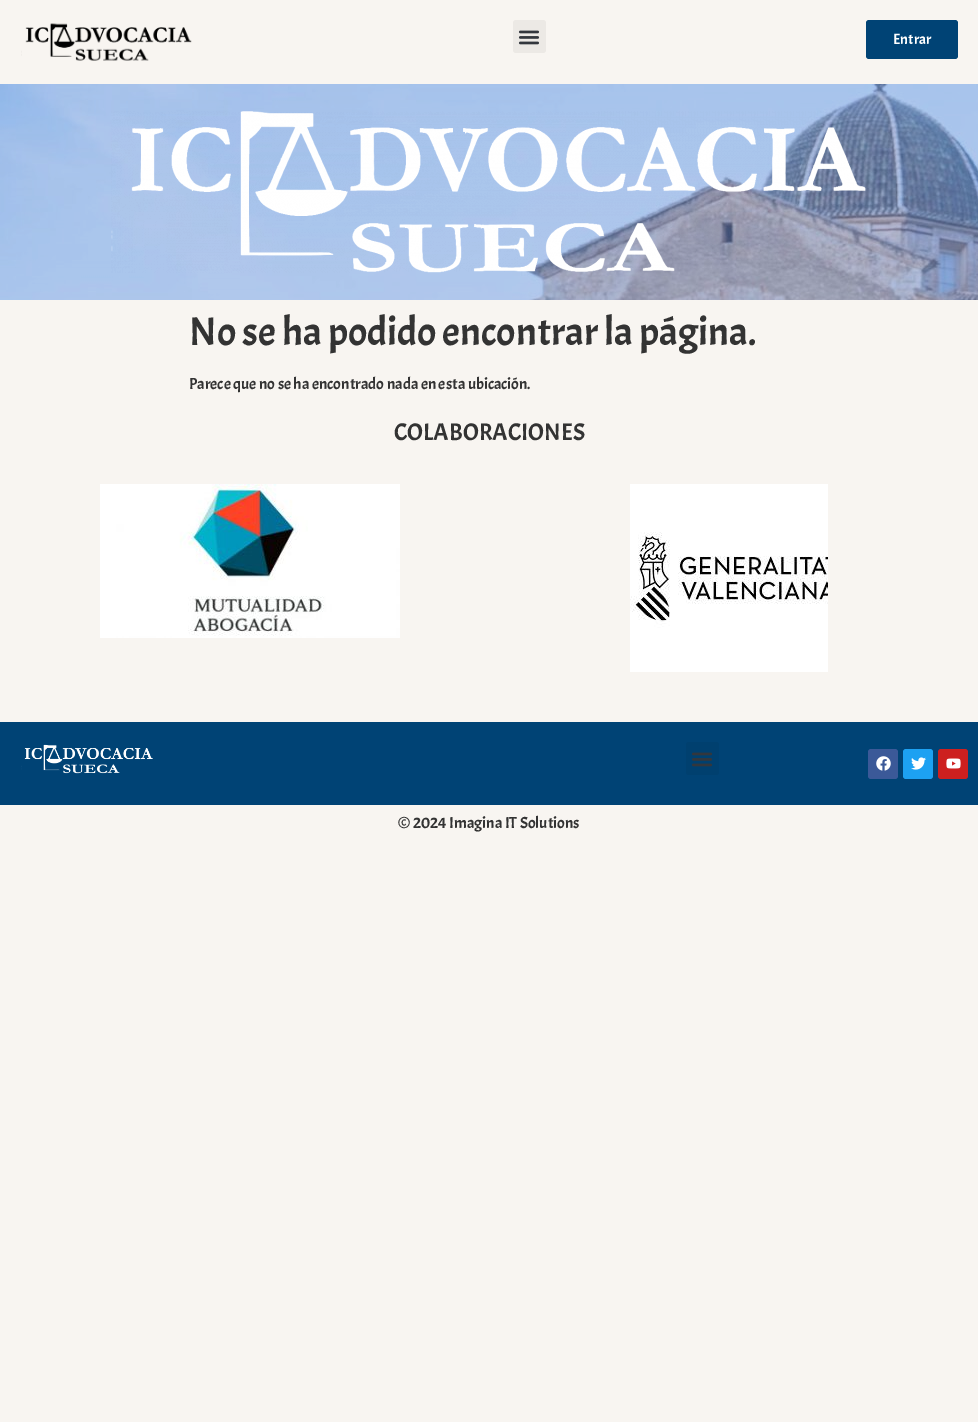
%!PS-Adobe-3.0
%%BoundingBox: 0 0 978 1422
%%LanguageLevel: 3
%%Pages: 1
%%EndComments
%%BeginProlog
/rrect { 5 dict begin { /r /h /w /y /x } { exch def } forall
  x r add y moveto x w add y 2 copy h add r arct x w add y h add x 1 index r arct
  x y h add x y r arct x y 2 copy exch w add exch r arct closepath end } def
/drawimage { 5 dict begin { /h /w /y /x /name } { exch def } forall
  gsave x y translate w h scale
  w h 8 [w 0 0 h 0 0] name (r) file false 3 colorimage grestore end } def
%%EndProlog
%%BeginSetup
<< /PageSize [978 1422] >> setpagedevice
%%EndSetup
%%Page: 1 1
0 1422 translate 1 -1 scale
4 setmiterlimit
0.973 0.961 0.945 setrgbcolor
0 0 978 1422 rectfill
(images/1.raw) 21 23 171 38 drawimage
0.925 0.914 0.898 setrgbcolor
513 20 33 33 3 rrect fill
(images/2.raw) 518 30 22 15 drawimage
0 0.263 0.459 setrgbcolor
866 20 92 39 3 rrect fill
(images/3.raw) 0 84 978 216 drawimage
(images/4.raw) 111 111 755 162 drawimage
(images/5.raw) 100 484 300 154 drawimage
(images/6.raw) 630 484 198 188 drawimage
0 722 978 83 rectfill
(images/7.raw) 21 744 132 30 drawimage
0 0.251 0.435 setrgbcolor
686 742 33 33 3 rrect fill
(images/8.raw) 692 752 20 15 drawimage
0.231 0.349 0.596 setrgbcolor
868 749 30 30 3 rrect fill
(images/9.raw) 876 756 15 15 drawimage
0.114 0.631 0.949 setrgbcolor
903 749 30 30 3 rrect fill
(images/10.raw) 911 757 15 13 drawimage
0.804 0.125 0.122 setrgbcolor
938 749 30 30 3 rrect fill
(images/11.raw) 946 758 15 11 drawimage
/Acme-Regular [15 0 0 -15 0 0] selectfont
1 setgray
893 44 moveto (Entrar) show
/Acme-Regular [40 0 0 -40 0 0] selectfont
0.2 setgray
189 345 moveto (No se ha podido encontrar la página.) show
/Acme-Regular [16 0 0 -16 0 0] selectfont
189 389 moveto (Parece que no se ha encontrado nada en esta ubicación.) show
/Acme-Regular [24 0 0 -24 0 0] selectfont
394 440 moveto (COLABORACIONES) show
/Acme-Regular [16 0 0 -16 0 0] selectfont
398 828 moveto (© 2024 Imagina IT Solutions) show
showpage
%%EOF
